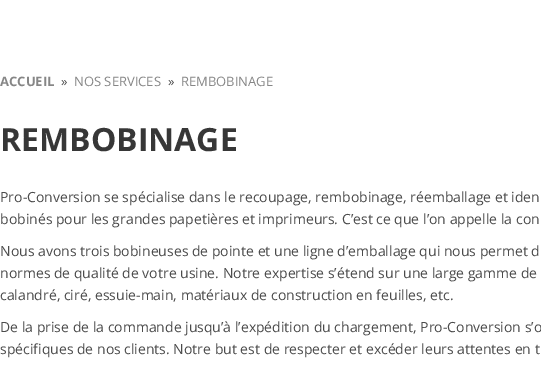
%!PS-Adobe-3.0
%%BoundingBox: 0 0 541 367
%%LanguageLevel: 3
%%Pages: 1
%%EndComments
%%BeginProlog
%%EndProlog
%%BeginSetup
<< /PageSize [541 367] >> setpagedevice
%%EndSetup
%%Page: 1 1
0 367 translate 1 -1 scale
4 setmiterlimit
1 setgray
0 0 541 367 rectfill
/OpenSans-Bold [13 0 0 -13 0 0] selectfont
0.525 setgray
0 86 moveto (ACCUEIL) show
/OpenSans-Regular [13 0 0 -13 0 0] selectfont
0.294 setgray
61 86 moveto (») show
0.525 setgray
74 86 moveto (NOS SERVICES) show
0.294 setgray
168 86 moveto (») show
0.525 setgray
181 86 moveto (REMBOBINAGE) show
/OpenSans-Bold [32 0 0 -32 0 0] selectfont
0.216 setgray
0 151 moveto (REMBOBINAGE) show
/OpenSans-Regular [14 0 0 -14 0 0] selectfont
0.294 setgray
0 202 moveto (Pro-Conversion se spécialise dans le recoupage, rembobinage, réemballage et iden) show
0 224 moveto (bobinés pour les grandes papetières et imprimeurs. C’est ce que l’on appelle la con) show
0 256 moveto (Nous avons trois bobineuses de pointe et une ligne d’emballage qui nous permet d) show
0 278 moveto (normes de qualité de votre usine. Notre expertise s’étend sur une large gamme de) show
0 300 moveto (calandré, ciré, essuie-main, matériaux de construction en feuilles, etc.) show
0 332 moveto (De la prise de la commande jusqu’à l’expédition du chargement, Pro-Conversion s’o) show
0 354 moveto (spécifiques de nos clients. Notre but est de respecter et excéder leurs attentes en t) show
showpage
%%EOF
